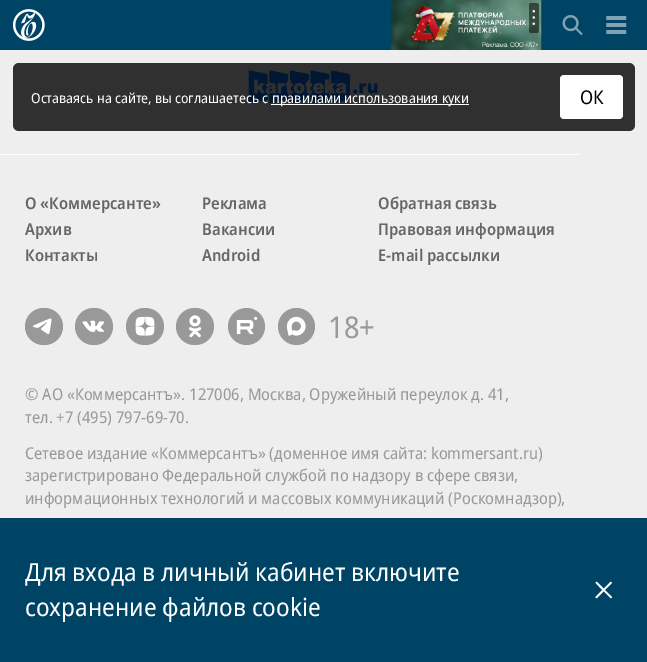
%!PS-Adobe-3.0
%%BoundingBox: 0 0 647 662
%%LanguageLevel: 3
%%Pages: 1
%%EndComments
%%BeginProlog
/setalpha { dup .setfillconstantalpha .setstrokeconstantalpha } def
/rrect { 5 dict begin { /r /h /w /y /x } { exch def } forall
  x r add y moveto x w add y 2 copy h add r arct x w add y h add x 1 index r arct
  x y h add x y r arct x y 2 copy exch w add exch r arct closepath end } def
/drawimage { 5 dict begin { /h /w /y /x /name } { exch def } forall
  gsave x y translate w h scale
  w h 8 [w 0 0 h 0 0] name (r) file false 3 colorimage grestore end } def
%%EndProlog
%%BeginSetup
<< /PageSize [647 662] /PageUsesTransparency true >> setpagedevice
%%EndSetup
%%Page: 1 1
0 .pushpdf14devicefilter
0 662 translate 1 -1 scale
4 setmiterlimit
0.933 setgray
0 0 647 662 rectfill
0 0.267 0.396 setrgbcolor
0 0 647 50 rectfill
(images/1.raw) 13 9 32 32 drawimage
(images/2.raw) 391 0 151 50 drawimage
0.5 setalpha
0 setgray
529 3 10 30 2.5 rrect fill
1 setalpha
(images/3.raw) 532 10 3 15 drawimage
(images/4.raw) 562 15 21 20 drawimage
(images/5.raw) 606 16 21 18 drawimage
(images/6.raw) 248 70 130 34 drawimage
0.8 setalpha
13 63 622 68 6 rrect fill
1 setalpha
1 setgray
271 104 198 1 rectfill
560 75 63 44 4 rrect fill
0 154 580 1 rectfill
0.6 setgray
25 308 38 37 18.5 rrect fill
(images/7.raw) 32 318 20 16 drawimage
75 308 38 37 18.5 rrect fill
(images/8.raw) 82 320 23 12 drawimage
126 308 38 37 18.5 rrect fill
(images/9.raw) 135 316 20 20 drawimage
176 308 38 37 18.5 rrect fill
(images/10.raw) 188 315 14 23 drawimage
newpath 246.5 326.5 18.5 0 360 arc closepath fill
(images/11.raw) 236 316 22 19 drawimage
newpath 296.5 326.5 18.5 0 360 arc closepath fill
(images/12.raw) 286 316 20 20 drawimage
0 0.267 0.396 setrgbcolor
0 518 647 144 rectfill
(images/13.raw) 595 581 17 18 drawimage
/NotoSans-Regular [13.75 0 0 -13.75 0 0] selectfont
1 setgray
31 103 moveto (Оставаясь на сайте, вы соглашаетесь с) show
272 103 moveto (правилами использования куки) show
/NotoSans-Regular [19 0 0 -19 0 0] selectfont
0 setgray
580 104 moveto (ОК) show
/NotoSans-SemiBold [16.25 0 0 -16.25 0 0] selectfont
0.4 setgray
25 209 moveto (О «Коммерсанте») show
202 209 moveto (Реклама) show
378 209 moveto (Обратная связь) show
25 235 moveto (Архив) show
202 235 moveto (Вакансии) show
378 235 moveto (Правовая информация) show
25 261 moveto (Контакты) show
202 261 moveto (Android) show
378 261 moveto (E-mail рассылки) show
/NotoSans-Regular [30 0 0 -30 0 0] selectfont
0.6 setgray
328 338 moveto (18+) show
/NotoSans-Regular [16.25 0 0 -16.25 0 0] selectfont
25 400 moveto (© АО «Коммерсантъ». 127006, Москва, Оружейный переулок д. 41,) show
25 423 moveto (тел. +7 \(495\) 797-69-70.) show
25 459 moveto (Сетевое издание «Коммерсантъ» \(доменное имя сайта: kommersant.ru\)) show
25 481 moveto (зарегистрировано Федеральной службой по надзору в сфере связи,) show
25 504 moveto (информационных технологий и массовых коммуникаций \(Роскомнадзор\),) show
/NotoSans-Regular [25 0 0 -25 0 0] selectfont
1 setgray
25 581 moveto (Для входа в личный кабинет включите) show
25 616 moveto (сохранение файлов cookie) show
.poppdf14devicefilter showpage
%%EOF
